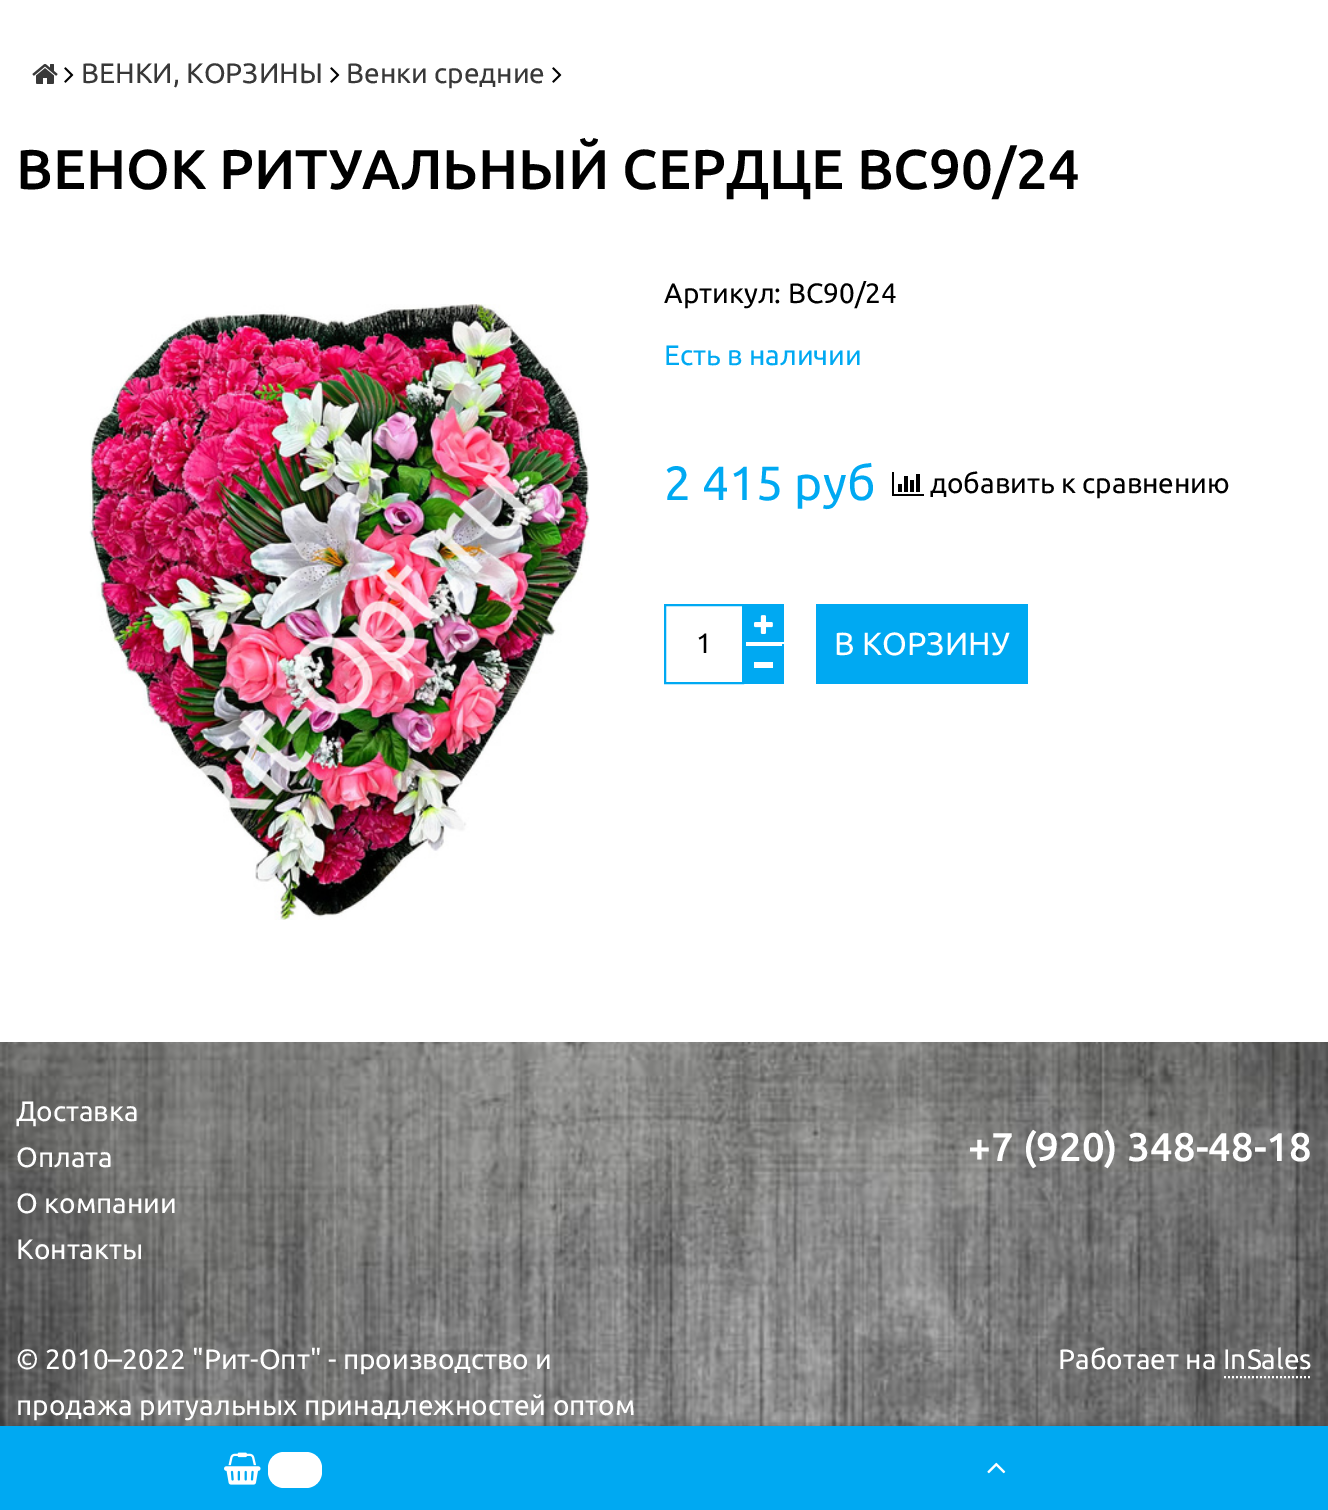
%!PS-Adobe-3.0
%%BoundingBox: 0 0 1328 1510
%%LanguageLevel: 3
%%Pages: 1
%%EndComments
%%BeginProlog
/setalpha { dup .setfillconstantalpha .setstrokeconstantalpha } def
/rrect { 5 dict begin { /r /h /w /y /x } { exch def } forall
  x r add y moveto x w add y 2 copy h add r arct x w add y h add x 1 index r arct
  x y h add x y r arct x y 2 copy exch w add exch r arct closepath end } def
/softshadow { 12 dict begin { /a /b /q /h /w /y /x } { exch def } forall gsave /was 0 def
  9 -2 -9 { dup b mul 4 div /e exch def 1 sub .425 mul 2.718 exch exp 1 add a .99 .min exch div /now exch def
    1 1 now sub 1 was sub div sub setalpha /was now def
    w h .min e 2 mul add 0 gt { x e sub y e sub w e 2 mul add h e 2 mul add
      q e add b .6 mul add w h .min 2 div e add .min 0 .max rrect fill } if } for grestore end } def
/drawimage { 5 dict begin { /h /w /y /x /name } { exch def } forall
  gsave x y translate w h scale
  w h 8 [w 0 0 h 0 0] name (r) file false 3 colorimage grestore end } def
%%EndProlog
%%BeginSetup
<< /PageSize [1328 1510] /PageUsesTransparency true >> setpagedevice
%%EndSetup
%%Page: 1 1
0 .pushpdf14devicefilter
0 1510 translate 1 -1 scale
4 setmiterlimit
1 setgray
0 0 1328 1510 rectfill
(images/1.raw) 32 64 26 20 drawimage
(images/2.raw) 64 67 10 16 drawimage
(images/2.raw) 330 67 10 16 drawimage
(images/2.raw) 552 67 10 16 drawimage
(images/3.raw) 89 304 501 616 drawimage
(images/4.raw) 892 472 32 24 drawimage
0 0.663 0.949 setrgbcolor
746 646 36 38 rectfill
782 644 2 40 rectfill
744 604 2 80 rectfill
1 setgray
754 662 19 6 rectfill
0 0.663 0.949 setrgbcolor
2 setlinewidth
665 605 78 78 rectstroke
746 604 38 38 rectfill
(images/5.raw) 754 615 19 19 drawimage
816 604 212 80 rectfill
(images/6.raw) 0 1042 1328 384 drawimage
1 setgray
[2 2] 0 setdash
newpath 1224 1377 moveto 1312 1377 lineto stroke
0.2 setgray
0 1430 1328 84 0 6 1 softshadow
0 0.663 0.949 setrgbcolor
0 1426 1328 84 rectfill
(images/7.raw) 987 1462 19 12 drawimage
(images/8.raw) 224 1452 37 33 drawimage
1 setgray
268 1452 54 36 16 rrect fill
/Ubuntu-Regular [28 0 0 -28 0 0] selectfont
0.22 setgray
81 83 moveto (ВЕНКИ, КОРЗИНЫ) show
346 83 moveto (Венки средние) show
/Ubuntu-Medium [56 0 0 -56 0 0] selectfont
0 setgray
16 189 moveto (ВЕНОК РИТУАЛЬНЫЙ СЕРДЦЕ ВС90/24) show
/Ubuntu-Regular [28 0 0 -28 0 0] selectfont
664 303 moveto (Артикул: ВС90/24) show
0 0.663 0.949 setrgbcolor
664 365 moveto (Есть в наличии) show
/Ubuntu-Regular [48 0 0 -48 0 0] selectfont
664 500 moveto (2 415 руб) show
/Ubuntu-Regular [28 0 0 -28 0 0] selectfont
0 setgray
930 493 moveto (добавить к сравнению) show
696 653 moveto (1) show
/Ubuntu-Regular [32 0 0 -32 0 0] selectfont
1 setgray
834 655 moveto (В КОРЗИНУ) show
/Ubuntu-Regular [28 0 0 -28 0 0] selectfont
16 1121 moveto (Доставка) show
16 1167 moveto (Оплата) show
16 1213 moveto (О компании) show
16 1259 moveto (Контакты) show
/Ubuntu-Medium [40 0 0 -40 0 0] selectfont
968 1161 moveto (+7 \(920\) 348-48-18) show
/Ubuntu-Regular [28 0 0 -28 0 0] selectfont
16 1369 moveto (© 2010–2022 "Рит-Опт" - производство и) show
16 1415 moveto (продажа ритуальных принадлежностей оптом) show
1058 1369 moveto (Работает на InSales) show
.poppdf14devicefilter showpage
%%EOF
